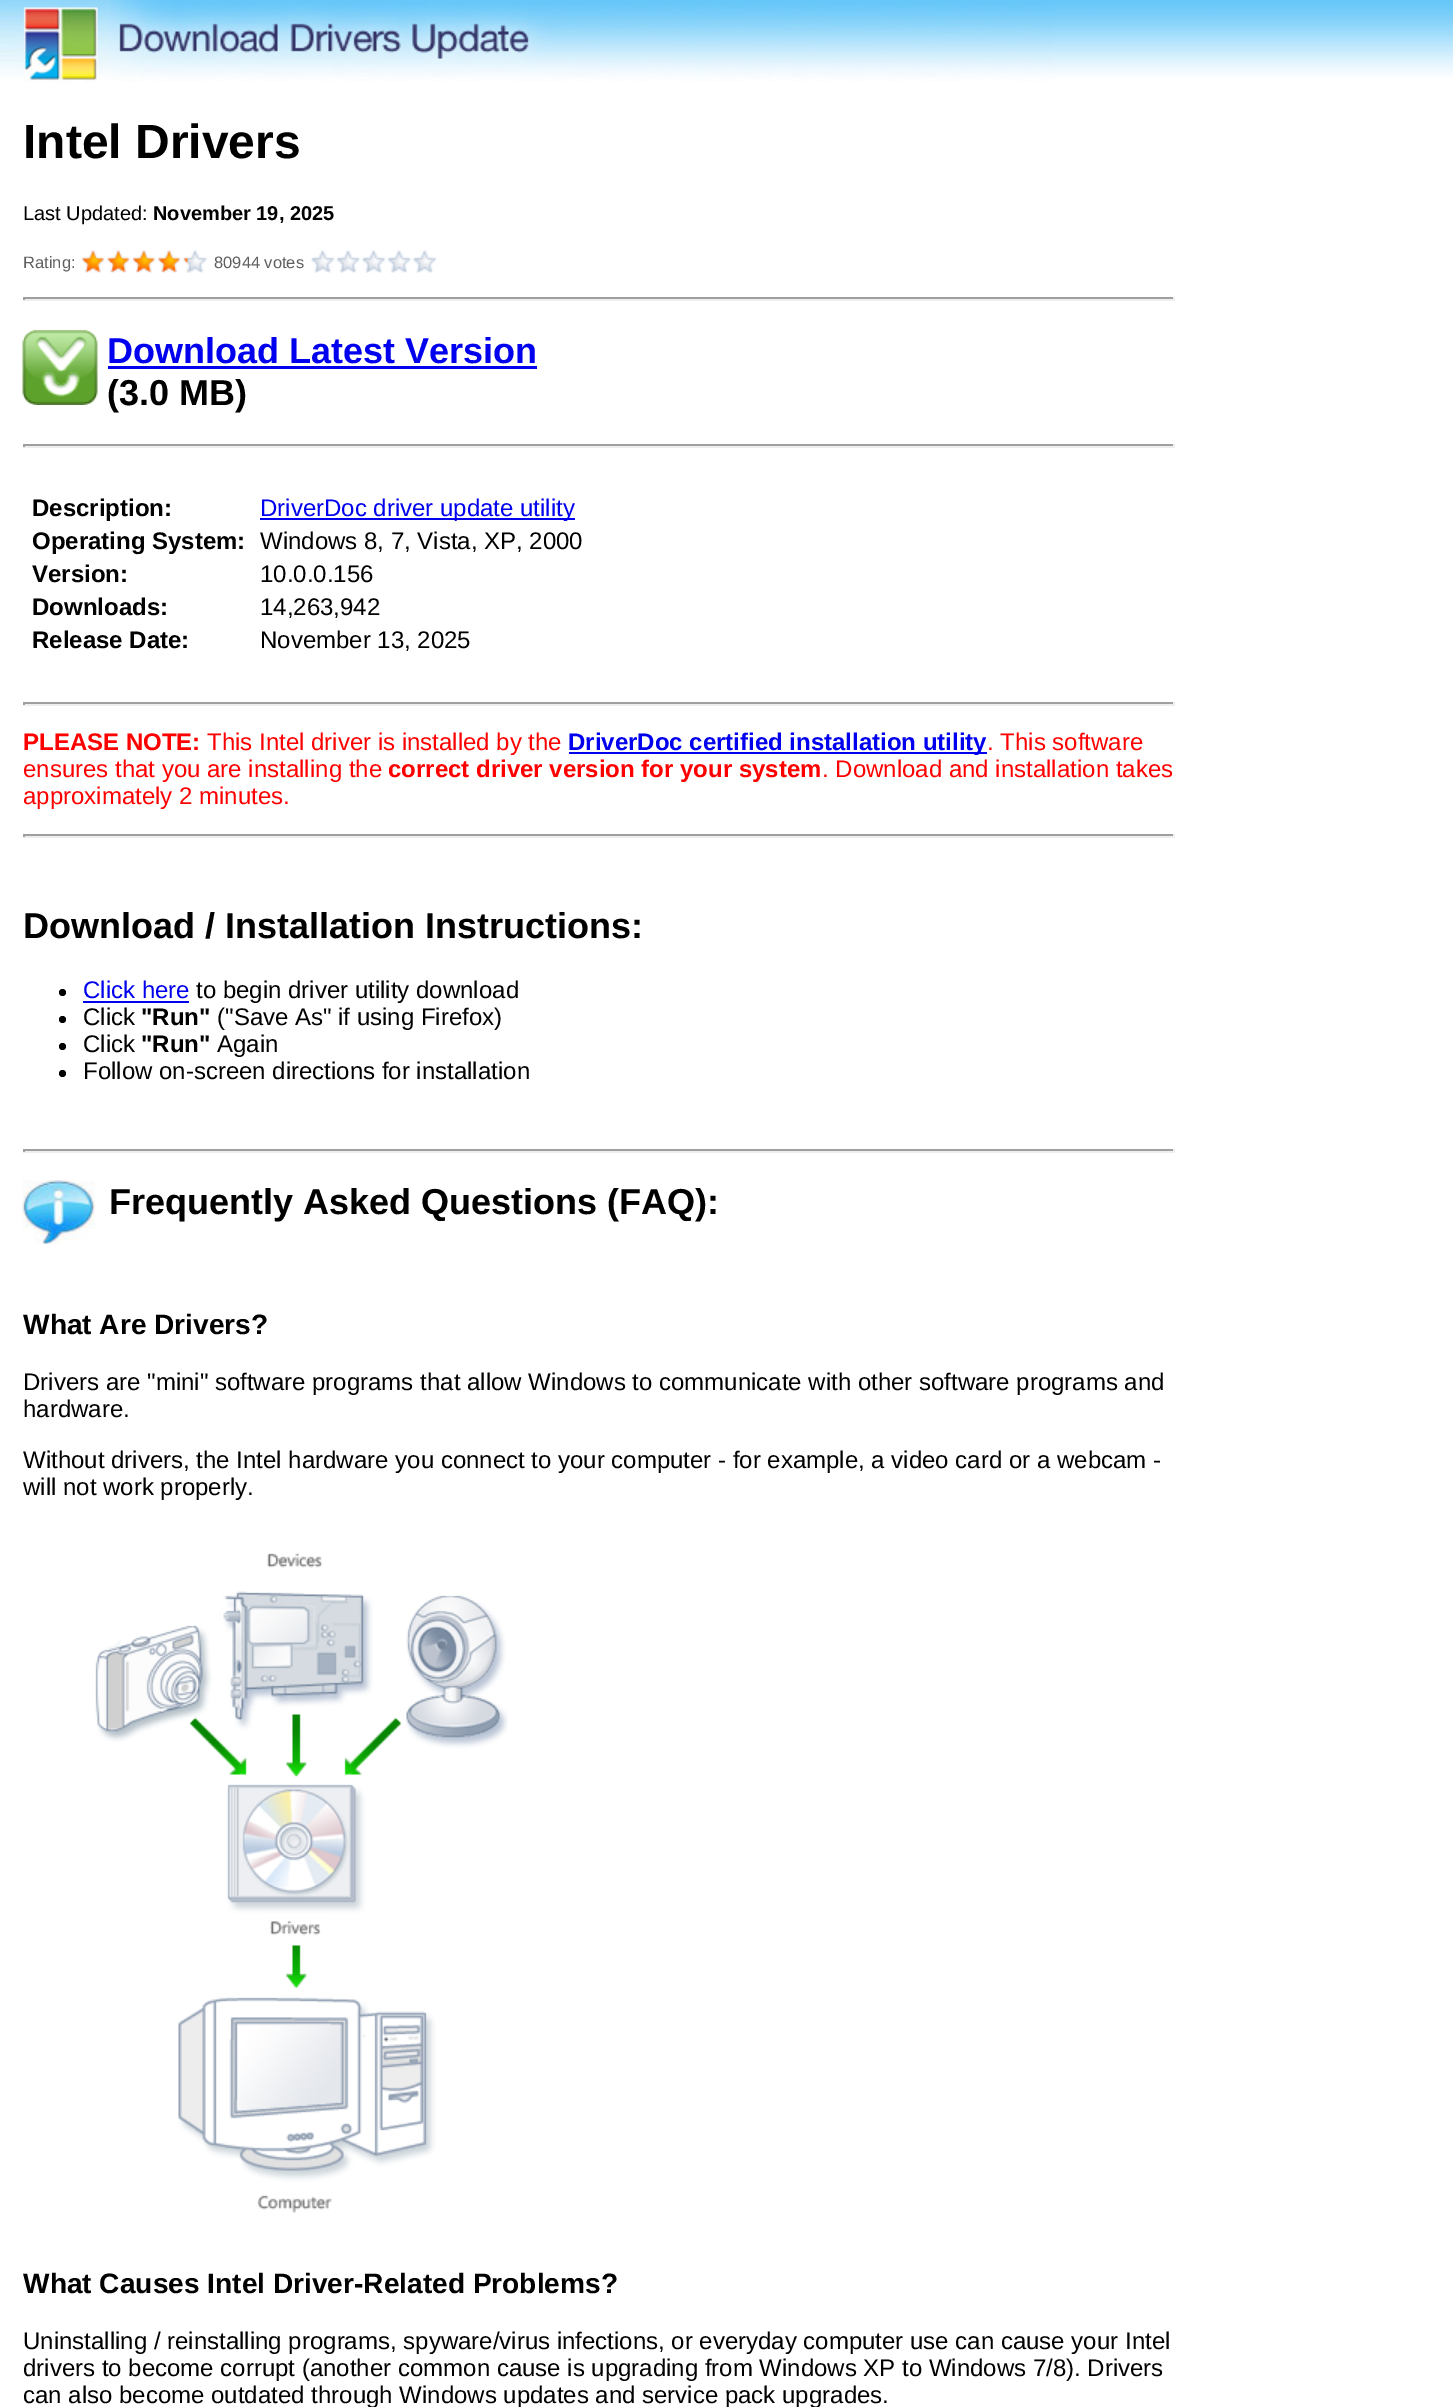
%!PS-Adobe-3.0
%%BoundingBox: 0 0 1453 2407
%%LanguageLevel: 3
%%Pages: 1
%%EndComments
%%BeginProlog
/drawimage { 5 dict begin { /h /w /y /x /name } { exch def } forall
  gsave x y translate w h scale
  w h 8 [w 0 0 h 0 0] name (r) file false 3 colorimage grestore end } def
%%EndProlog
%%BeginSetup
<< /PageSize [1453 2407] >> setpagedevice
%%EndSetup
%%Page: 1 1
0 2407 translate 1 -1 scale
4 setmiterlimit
1 setgray
0 0 1453 2407 rectfill
(images/1.raw) 1053 0 400 78 drawimage
(images/2.raw) 0 0 1053 83 drawimage
(images/3.raw) 81 250 127 23 drawimage
(images/4.raw) 82 250 106 23 drawimage
(images/5.raw) 311 250 126 23 drawimage
0.624 setgray
23 297 1152 2 rectfill
0.933 setgray
1173 297 2 3 rectfill
23 299 1152 2 rectfill
0.624 setgray
23 297 2 3 rectfill
(images/6.raw) 22 330 76 75 drawimage
0 0 0.933 setrgbcolor
108 366 429 3 rectfill
0.624 setgray
23 444 1152 2 rectfill
0.933 setgray
1173 444 2 3 rectfill
23 446 1152 2 rectfill
0.624 setgray
23 444 2 3 rectfill
0 0 0.933 setrgbcolor
260 518 315 2 rectfill
0.624 setgray
23 702 1152 2 rectfill
0.933 setgray
1173 702 2 3 rectfill
23 704 1152 2 rectfill
0.624 setgray
23 702 2 3 rectfill
0 0 0.933 setrgbcolor
569 752 418 2 rectfill
0.624 setgray
23 834 1152 2 rectfill
0.933 setgray
1173 834 2 3 rectfill
23 836 1152 2 rectfill
0.624 setgray
23 834 2 3 rectfill
0 setgray
newpath 62.5 992.5 3.5 0 360 arc closepath fill
0 0 0.933 setrgbcolor
83 1001 106 2 rectfill
0 setgray
newpath 62.5 1019.5 3.5 0 360 arc closepath fill
newpath 62.5 1046.5 3.5 0 360 arc closepath fill
newpath 62.5 1073.5 3.5 0 360 arc closepath fill
0.624 setgray
23 1149 1152 2 rectfill
0.933 setgray
1173 1149 2 3 rectfill
23 1151 1152 2 rectfill
0.624 setgray
23 1149 2 3 rectfill
(images/7.raw) 22 1180 73 64 drawimage
(images/8.raw) 95 1552 413 661 drawimage
/LiberationSans-Bold [48 0 0 -48 0 0] selectfont
0 setgray
23 158 moveto (Intel Drivers) show
/LiberationSans-Regular [20 0 0 -20 0 0] selectfont
23 220 moveto (Last Updated:) show
/LiberationSans-Bold [20 0 0 -20 0 0] selectfont
153 220 moveto (November 19, 2025) show
/LiberationSans-Regular [16.5 0 0 -16.5 0 0] selectfont
0.373 setgray
23 268 moveto (Rating:) show
214 268 moveto (80944 votes) show
/LiberationSans-Bold [36 0 0 -36 0 0] selectfont
0 0 0.933 setrgbcolor
107 363 moveto (Download Latest Version) show
0 setgray
107 405 moveto (\(3.0 MB\)) show
/LiberationSans-Bold [24 0 0 -24 0 0] selectfont
32 516 moveto (Description:) show
32 549 moveto (Operating System:) show
32 582 moveto (Version:) show
32 615 moveto (Downloads:) show
32 648 moveto (Release Date:) show
/LiberationSans-Regular [24 0 0 -24 0 0] selectfont
0 0 0.933 setrgbcolor
260 516 moveto (DriverDoc driver update utility) show
0 setgray
260 549 moveto (Windows 8, 7, Vista, XP, 2000) show
260 582 moveto (10.0.0.156) show
260 615 moveto (14,263,942) show
260 648 moveto (November 13, 2025) show
/LiberationSans-Bold [24 0 0 -24 0 0] selectfont
1 0 0 setrgbcolor
23 750 moveto (PLEASE NOTE:) show
/LiberationSans-Regular [24 0 0 -24 0 0] selectfont
207 750 moveto (This Intel driver is installed by the) show
/LiberationSans-Bold [24 0 0 -24 0 0] selectfont
0 0 0.933 setrgbcolor
568 750 moveto (DriverDoc certified installation utility) show
/LiberationSans-Regular [24 0 0 -24 0 0] selectfont
1 0 0 setrgbcolor
987 750 moveto (. This software) show
23 777 moveto (ensures that you are installing the) show
/LiberationSans-Bold [24 0 0 -24 0 0] selectfont
388 777 moveto (correct driver version for your system) show
/LiberationSans-Regular [24 0 0 -24 0 0] selectfont
822 777 moveto (. Download and installation takes) show
23 804 moveto (approximately 2 minutes.) show
/LiberationSans-Bold [36 0 0 -36 0 0] selectfont
0 setgray
23 938 moveto (Download / Installation Instructions:) show
/LiberationSans-Regular [24 0 0 -24 0 0] selectfont
0 0 0.933 setrgbcolor
83 998 moveto (Click here) show
0 setgray
196 998 moveto (to begin driver utility download) show
83 1025 moveto (Click) show
/LiberationSans-Bold [24 0 0 -24 0 0] selectfont
141 1025 moveto ("Run") show
/LiberationSans-Regular [24 0 0 -24 0 0] selectfont
217 1025 moveto (\("Save As" if using Firefox\)) show
83 1052 moveto (Click) show
/LiberationSans-Bold [24 0 0 -24 0 0] selectfont
141 1052 moveto ("Run") show
/LiberationSans-Regular [24 0 0 -24 0 0] selectfont
217 1052 moveto (Again) show
83 1079 moveto (Follow on-screen directions for installation) show
/LiberationSans-Bold [36 0 0 -36 0 0] selectfont
109 1214 moveto (Frequently Asked Questions \(FAQ\):) show
/LiberationSans-Bold [28.1 0 0 -28.1 0 0] selectfont
23 1334 moveto (What Are Drivers?) show
/LiberationSans-Regular [24 0 0 -24 0 0] selectfont
23 1390 moveto (Drivers are "mini" software programs that allow Windows to communicate with other software programs and) show
23 1417 moveto (hardware.) show
23 1468 moveto (Without drivers, the Intel hardware you connect to your computer - for example, a video card or a webcam -) show
23 1495 moveto (will not work properly.) show
/LiberationSans-Bold [28.1 0 0 -28.1 0 0] selectfont
23 2293 moveto (What Causes Intel Driver-Related Problems?) show
/LiberationSans-Regular [24 0 0 -24 0 0] selectfont
23 2349 moveto (Uninstalling / reinstalling programs, spyware/virus infections, or everyday computer use can cause your Intel) show
23 2376 moveto (drivers to become corrupt \(another common cause is upgrading from Windows XP to Windows 7/8\). Drivers) show
23 2403 moveto (can also become outdated through Windows updates and service pack upgrades.) show
showpage
%%EOF
